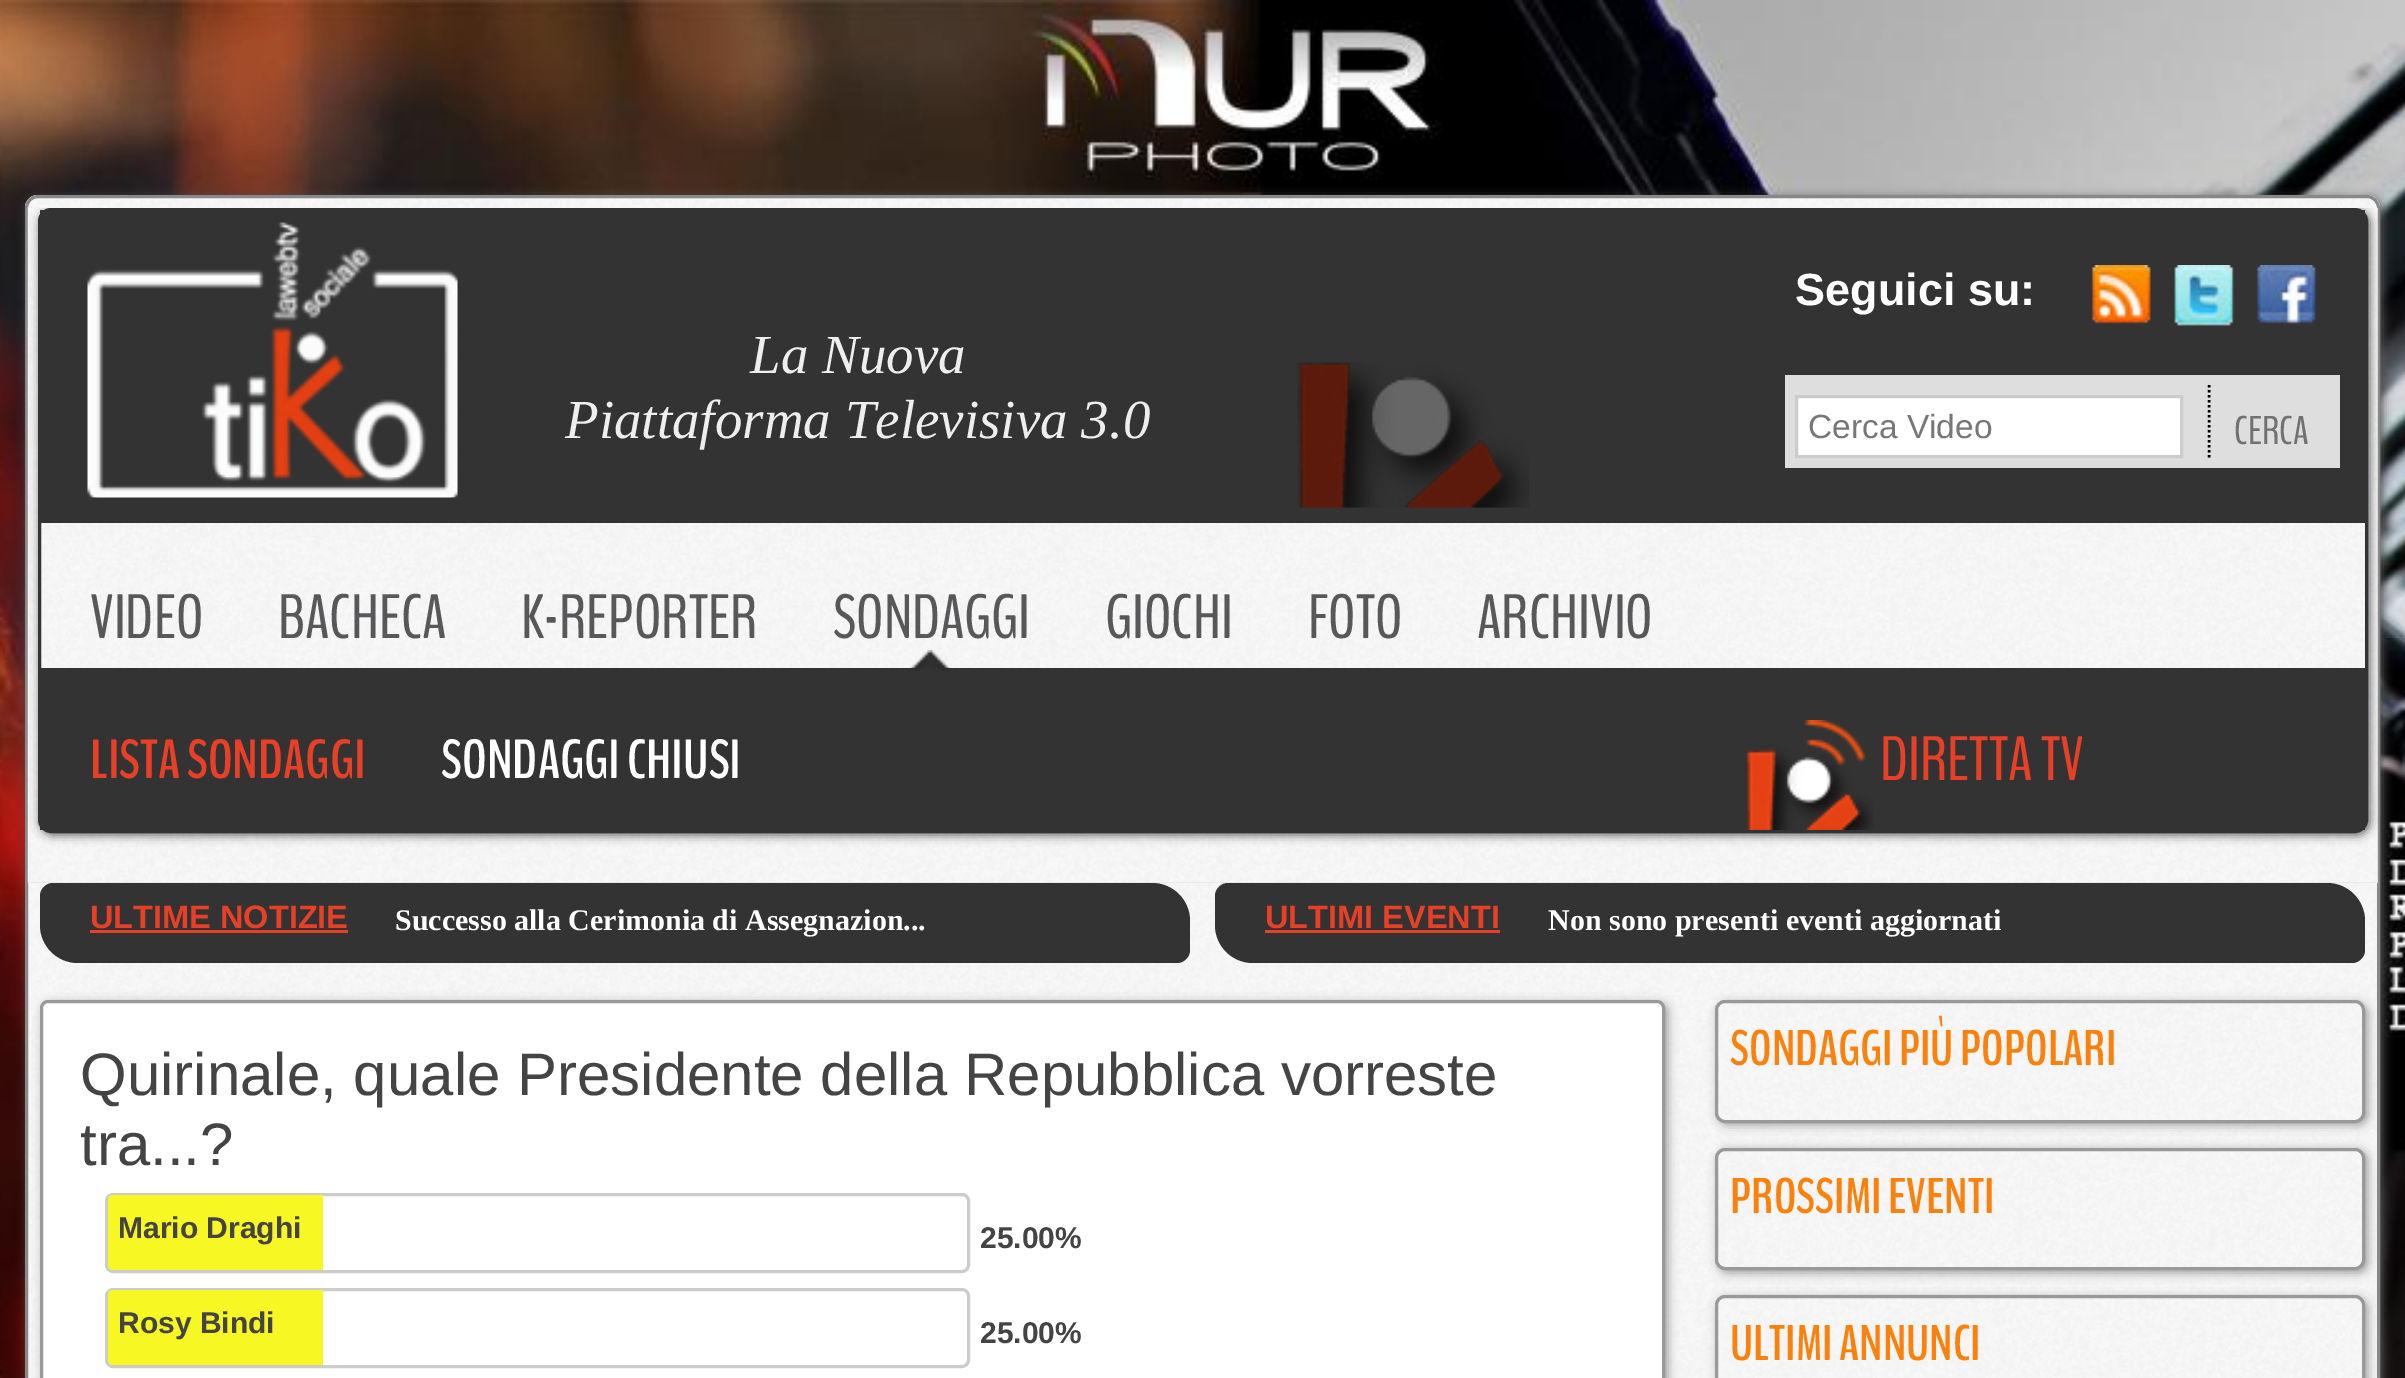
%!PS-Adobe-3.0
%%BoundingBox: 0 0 2405 1378
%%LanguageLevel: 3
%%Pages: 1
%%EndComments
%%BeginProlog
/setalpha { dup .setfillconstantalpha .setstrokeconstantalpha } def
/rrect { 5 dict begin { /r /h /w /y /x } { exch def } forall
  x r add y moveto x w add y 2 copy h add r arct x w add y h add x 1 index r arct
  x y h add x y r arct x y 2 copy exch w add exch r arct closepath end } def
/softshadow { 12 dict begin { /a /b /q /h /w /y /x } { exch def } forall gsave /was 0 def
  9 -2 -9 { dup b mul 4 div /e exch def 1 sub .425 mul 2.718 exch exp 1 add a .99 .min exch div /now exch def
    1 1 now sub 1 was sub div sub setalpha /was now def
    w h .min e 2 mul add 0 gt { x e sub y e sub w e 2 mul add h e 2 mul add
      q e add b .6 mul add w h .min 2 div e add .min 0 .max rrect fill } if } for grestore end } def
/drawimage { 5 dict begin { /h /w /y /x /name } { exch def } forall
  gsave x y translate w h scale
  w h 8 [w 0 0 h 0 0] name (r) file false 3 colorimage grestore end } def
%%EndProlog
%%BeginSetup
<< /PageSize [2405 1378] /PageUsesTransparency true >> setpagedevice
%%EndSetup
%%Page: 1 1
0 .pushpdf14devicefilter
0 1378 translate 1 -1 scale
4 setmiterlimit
1 setgray
0 0 2405 1378 rectfill
(images/1.raw) 0 0 2405 1378 drawimage
0.333 setgray
28 198 2355 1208 13 5 1 softshadow
(images/2.raw) 25 195 2355 1183 drawimage
0.533 setgray
3 setlinewidth
26.5 196.5 2352 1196 11.5 rrect stroke
0.871 setgray
28 208 2350 675 rectfill
(images/3.raw) 27 207 2351 676 drawimage
gsave
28 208 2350 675 rectclip
newpath 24 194 moveto 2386 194 lineto 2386 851 lineto 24 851 lineto closepath 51 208 moveto 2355 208 lineto 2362 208 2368 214 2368 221 curveto 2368 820 lineto 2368 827 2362 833 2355 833 curveto 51 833 lineto 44 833 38 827 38 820 curveto 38 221 lineto 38 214 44 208 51 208 curveto closepath eoclip newpath
0.333 setgray
40 210 2330 625 13 5 1 softshadow
grestore
0.2 setgray
39.5 209.5 2327 622 11.5 rrect stroke
40 210 2325 313 rectfill
(images/4.raw) 87 222 371 276 drawimage
(images/5.raw) 2091 265 60 59 drawimage
(images/6.raw) 2174 265 60 61 drawimage
(images/7.raw) 2256 265 60 59 drawimage
(images/8.raw) 1297 362 232 146 drawimage
0.871 setgray
1785 375 555 93 rectfill
1 setgray
newpath 1796.5 396.5 moveto 2181.5 396.5 lineto 2181.5 456.5 lineto 1796.5 456.5 lineto closepath gsave fill grestore
0.8 setgray
stroke
0 setgray
2.5 setlinewidth
[2.5 2.5] 0 setdash
newpath 2209 385 moveto 2209 460 lineto stroke
0.2 setgray
40 668 2325 162 rectfill
(images/9.raw) 910 650 41 21 drawimage
(images/10.raw) 1746 720 128 110 drawimage
newpath 53 883 moveto 1152 883 lineto 1173 883 1190 900 1190 921 curveto 1190 950 lineto 1190 957 1184 963 1177 963 curveto 78 963 lineto 57 963 40 946 40 925 curveto 40 896 lineto 40 889 46 883 53 883 curveto closepath fill
0.91 0.251 0.153 setrgbcolor
90 930 258 3 rectfill
0.2 setgray
newpath 1228 883 moveto 2327 883 lineto 2348 883 2365 900 2365 921 curveto 2365 950 lineto 2365 957 2359 963 2352 963 curveto 1253 963 lineto 1232 963 1215 946 1215 925 curveto 1215 896 lineto 1215 889 1221 883 1228 883 curveto closepath fill
0.91 0.251 0.153 setrgbcolor
1265 930 235 3 rectfill
0.6 setgray
43 1003 1625 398 8 5 1 softshadow
1 setgray
41.5 1001.5 1622 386 6.5 rrect gsave fill grestore
0.6 setgray
3 setlinewidth
[] 0 setdash
stroke
0.8 setgray
106.5 1194.5 862 77 6.5 rrect stroke
0.969 0.969 0.137 setrgbcolor
newpath 113 1195 moveto 323 1195 lineto 323 1270 lineto 113 1270 lineto 110 1270 108 1268 108 1265 curveto 108 1200 lineto 108 1197 110 1195 113 1195 curveto closepath fill
0.8 setgray
106.5 1289.5 862 77 6.5 rrect stroke
0.969 0.969 0.137 setrgbcolor
newpath 113 1290 moveto 323 1290 lineto 323 1365 lineto 113 1365 lineto 110 1365 108 1363 108 1360 curveto 108 1295 lineto 108 1292 110 1290 113 1290 curveto closepath fill
gsave
newpath 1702 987 moveto 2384 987 lineto 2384 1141 lineto 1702 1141 lineto closepath 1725 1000 moveto 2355 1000 lineto 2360.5 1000 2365 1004.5 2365 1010 curveto 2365 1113 lineto 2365 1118.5 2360.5 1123 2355 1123 curveto 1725 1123 lineto 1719.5 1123 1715 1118.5 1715 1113 curveto 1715 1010 lineto 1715 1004.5 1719.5 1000 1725 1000 curveto closepath eoclip newpath
0.6 setgray
1718 1003 650 122 10 5 1 softshadow
grestore
0.6 setgray
1716.5 1001.5 647 120 8.5 rrect stroke
gsave
newpath 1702 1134 moveto 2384 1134 lineto 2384 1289 lineto 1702 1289 lineto closepath 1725 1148 moveto 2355 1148 lineto 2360.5 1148 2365 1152.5 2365 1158 curveto 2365 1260 lineto 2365 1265.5 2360.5 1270 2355 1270 curveto 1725 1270 lineto 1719.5 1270 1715 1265.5 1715 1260 curveto 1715 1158 lineto 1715 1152.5 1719.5 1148 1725 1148 curveto closepath eoclip newpath
1718 1150 650 123 10 5 1 softshadow
grestore
1716.5 1149.5 647 119 8.5 rrect stroke
gsave
newpath 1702 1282 moveto 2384 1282 lineto 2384 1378 lineto 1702 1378 lineto closepath 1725 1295 moveto 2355 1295 lineto 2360.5 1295 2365 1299.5 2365 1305 curveto 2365 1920 lineto 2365 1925.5 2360.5 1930 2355 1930 curveto 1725 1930 lineto 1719.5 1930 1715 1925.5 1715 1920 curveto 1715 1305 lineto 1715 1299.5 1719.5 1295 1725 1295 curveto closepath eoclip newpath
1718 1298 650 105 10 5 1 softshadow
grestore
1716.5 1296.5 647 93 8.5 rrect stroke
/LiberationSans-Bold [45 0 0 -45 0 0] selectfont
1 setgray
1795 305 moveto (Seguici su:) show
/LiberationSerif-Italic [55 0 0 -55 0 0] selectfont
0.933 setgray
750 373 moveto (La Nuova) show
565 438 moveto (Piattaforma Televisiva 3.0) show
/LiberationSans-Regular [33.5 0 0 -33.5 0 0] selectfont
0.467 setgray
1808 438 moveto (Cerca Video) show
/BenchNine-Regular [40 0 0 -40 0 0] selectfont
0.443 setgray
2234 444 moveto (CERCA) show
/BenchNine-Regular [62.5 0 0 -62.5 0 0] selectfont
0.345 0.345 0.353 setrgbcolor
90 638 moveto (VIDEO) show
278 638 moveto (BACHECA) show
521 638 moveto (K-REPORTER) show
833 638 moveto (SONDAGGI) show
1105 638 moveto (GIOCHI) show
1308 638 moveto (FOTO) show
1477 638 moveto (ARCHIVIO) show
/BenchNine-Bold [55 0 0 -55 0 0] selectfont
0.91 0.251 0.153 setrgbcolor
90 778 moveto (LISTA SONDAGGI) show
1 setgray
441 778 moveto (SONDAGGI CHIUSI) show
/BenchNine-Regular [62.5 0 0 -62.5 0 0] selectfont
0.91 0.251 0.153 setrgbcolor
1880 780 moveto (DIRETTA TV) show
/LiberationSans-Bold [32.5 0 0 -32.5 0 0] selectfont
90 928 moveto (ULTIME NOTIZIE) show
/LiberationSerif-Bold [30 0 0 -30 0 0] selectfont
1 setgray
395 930 moveto (Successo alla Cerimonia di Assegnazion...) show
/LiberationSans-Bold [32.5 0 0 -32.5 0 0] selectfont
0.91 0.251 0.153 setrgbcolor
1265 928 moveto (ULTIMI EVENTI) show
/LiberationSerif-Bold [30 0 0 -30 0 0] selectfont
1 setgray
1548 930 moveto (Non sono presenti eventi aggiornati) show
/LiberationSans-Regular [60 0 0 -60 0 0] selectfont
0.267 setgray
80 1095 moveto (Quirinale, quale Presidente della Repubblica vorreste) show
80 1165 moveto (tra...?) show
/LiberationSans-Bold [30 0 0 -30 0 0] selectfont
118 1238 moveto (Mario Draghi) show
980 1248 moveto (25.00%) show
118 1333 moveto (Rosy Bindi) show
980 1343 moveto (25.00%) show
/BenchNine-Bold [50 0 0 -50 0 0] selectfont
0.98 0.506 0.047 setrgbcolor
1730 1065 moveto (SONDAGGI PIÙ POPOLARI) show
1730 1213 moveto (PROSSIMI EVENTI) show
1730 1360 moveto (ULTIMI ANNUNCI) show
.poppdf14devicefilter showpage
%%EOF
